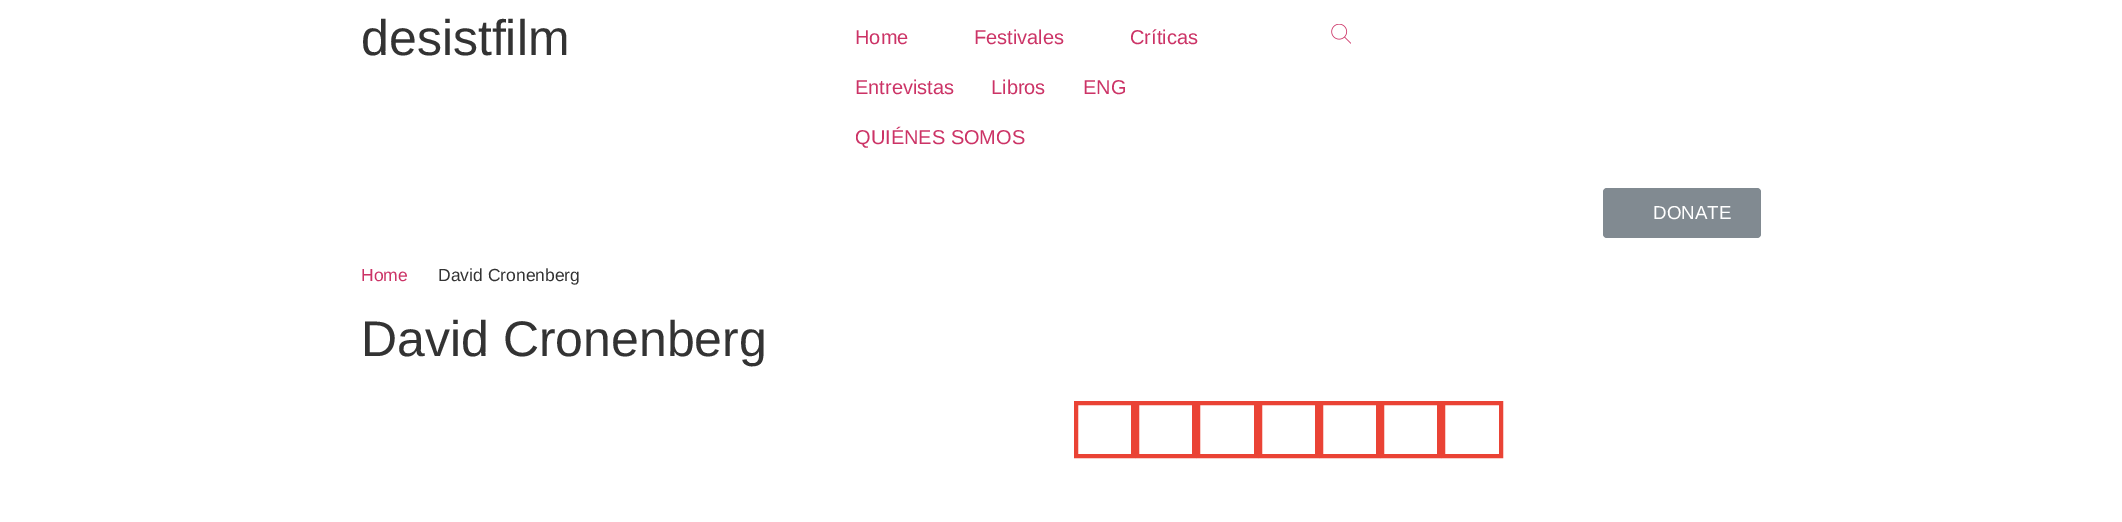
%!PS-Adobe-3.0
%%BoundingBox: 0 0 2122 522
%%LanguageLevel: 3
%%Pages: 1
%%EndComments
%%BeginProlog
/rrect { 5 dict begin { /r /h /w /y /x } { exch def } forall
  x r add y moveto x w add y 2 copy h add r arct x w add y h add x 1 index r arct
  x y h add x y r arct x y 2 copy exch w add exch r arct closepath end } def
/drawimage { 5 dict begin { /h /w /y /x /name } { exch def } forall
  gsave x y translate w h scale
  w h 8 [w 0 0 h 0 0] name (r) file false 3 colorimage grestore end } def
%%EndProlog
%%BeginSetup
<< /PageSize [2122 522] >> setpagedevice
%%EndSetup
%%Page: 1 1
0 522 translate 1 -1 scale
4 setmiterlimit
1 setgray
0 0 2122 522 rectfill
(images/1.raw) 1331 24 20 20 drawimage
0.506 0.541 0.569 setrgbcolor
1603 188 158 50 4 rrect fill
0.918 0.263 0.208 setrgbcolor
4 setlinewidth
1076 403 57 53 rectstroke
1137 403 57 53 rectstroke
1198 403 58 53 rectstroke
1260 403 57 53 rectstroke
1321 403 57 53 rectstroke
1382 403 57 53 rectstroke
1443 403 58 53 rectstroke
/LiberationSans-Regular [50 0 0 -50 0 0] selectfont
0.2 setgray
361 55 moveto (desistfilm) show
/LiberationSans-Regular [20 0 0 -20 0 0] selectfont
0.8 0.2 0.4 setrgbcolor
855 44 moveto (Home) show
974 44 moveto (Festivales) show
1130 44 moveto (Críticas) show
855 94 moveto (Entrevistas) show
991 94 moveto (Libros) show
1083 94 moveto (ENG) show
855 144 moveto (QUIÉNES SOMOS) show
/LiberationSans-Regular [18.75 0 0 -18.75 0 0] selectfont
1 setgray
1653 219 moveto (DONATE) show
/LiberationSans-Regular [17.5 0 0 -17.5 0 0] selectfont
0.8 0.2 0.4 setrgbcolor
361 281 moveto (Home) show
0.2 setgray
438 281 moveto (David Cronenberg) show
/LiberationSans-Regular [50 0 0 -50 0 0] selectfont
361 356 moveto (David Cronenberg) show
showpage
%%EOF
